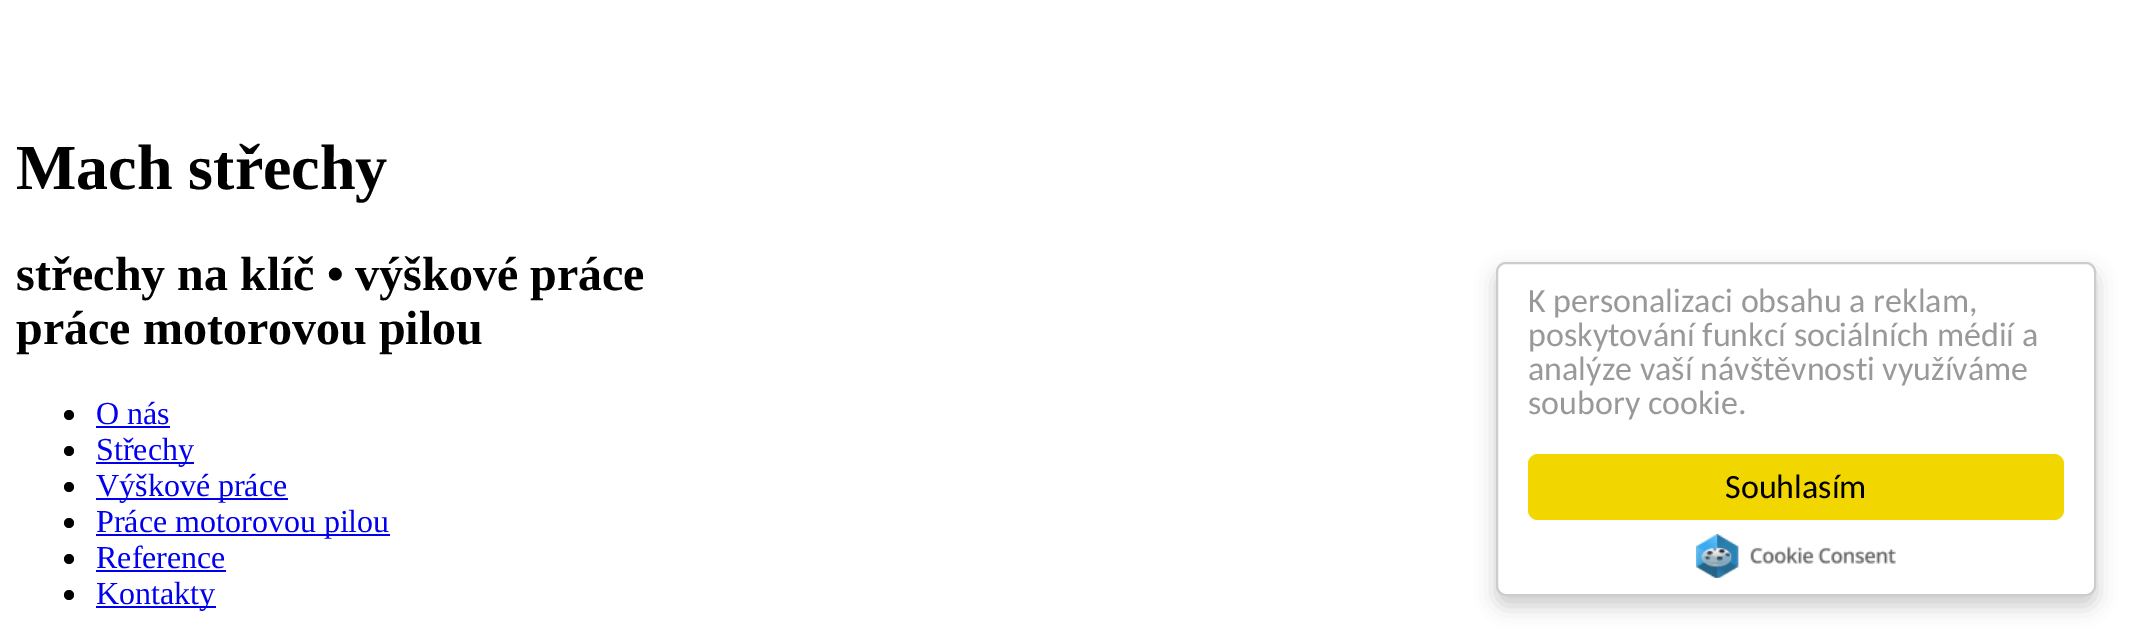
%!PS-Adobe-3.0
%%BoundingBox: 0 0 2135 636
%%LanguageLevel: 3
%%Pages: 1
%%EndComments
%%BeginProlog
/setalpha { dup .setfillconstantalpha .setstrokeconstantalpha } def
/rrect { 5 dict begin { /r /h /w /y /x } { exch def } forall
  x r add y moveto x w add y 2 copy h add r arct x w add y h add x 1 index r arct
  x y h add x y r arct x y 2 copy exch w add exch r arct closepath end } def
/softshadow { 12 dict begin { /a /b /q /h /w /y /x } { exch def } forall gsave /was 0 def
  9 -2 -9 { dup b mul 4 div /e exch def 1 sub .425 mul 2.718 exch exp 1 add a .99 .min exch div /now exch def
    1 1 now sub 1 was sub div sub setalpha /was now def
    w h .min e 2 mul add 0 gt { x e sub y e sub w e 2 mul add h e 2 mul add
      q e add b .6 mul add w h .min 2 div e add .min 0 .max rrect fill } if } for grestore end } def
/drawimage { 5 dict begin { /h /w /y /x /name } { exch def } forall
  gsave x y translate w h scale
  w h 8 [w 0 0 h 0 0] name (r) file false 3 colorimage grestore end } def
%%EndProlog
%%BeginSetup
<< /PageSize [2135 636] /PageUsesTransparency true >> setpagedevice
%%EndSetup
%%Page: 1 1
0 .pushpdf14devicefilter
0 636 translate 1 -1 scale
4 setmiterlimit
1 setgray
0 0 2135 636 rectfill
0 setgray
newpath 69 415 5 0 360 arc closepath fill
0 0 0.933 setrgbcolor
96 426 74 2 rectfill
0 setgray
newpath 69 451 5 0 360 arc closepath fill
0 0 0.933 setrgbcolor
96 462 98 2 rectfill
0 setgray
newpath 69 487 5 0 360 arc closepath fill
0 0 0.933 setrgbcolor
96 498 192 2 rectfill
0 setgray
newpath 69 523 5 0 360 arc closepath fill
0 0 0.933 setrgbcolor
96 534 294 2 rectfill
0 setgray
newpath 69 559 5 0 360 arc closepath fill
0 0 0.933 setrgbcolor
96 570 130 2 rectfill
0 setgray
newpath 69 595 5 0 360 arc closepath fill
0 0 0.933 setrgbcolor
96 606 120 2 rectfill
0 setgray
1496 272 600 334 10 10 0.2 softshadow
1 setgray
1497 263 598 332 9 rrect gsave fill grestore
0.8 setgray
2 setlinewidth
stroke
0.945 0.839 0 setrgbcolor
1528 454 536 66 10 rrect fill
(images/1.raw) 1696 534 200 44 drawimage
/LiberationSerif-Bold [64 0 0 -64 0 0] selectfont
0 setgray
16 189 moveto (Mach střechy) show
/LiberationSerif-Bold [48 0 0 -48 0 0] selectfont
16 290 moveto (střechy na klíč • výškové práce) show
16 344 moveto (práce motorovou pilou) show
/LiberationSerif-Regular [32 0 0 -32 0 0] selectfont
0 0 0.933 setrgbcolor
96 424 moveto (O nás) show
96 460 moveto (Střechy) show
96 496 moveto (Výškové práce) show
96 532 moveto (Práce motorovou pilou) show
96 568 moveto (Reference) show
96 604 moveto (Kontakty) show
/Carlito-Regular [34 0 0 -34 0 0] selectfont
0.6 setgray
1528 312 moveto (K personalizaci obsahu a reklam,) show
1528 346 moveto (poskytování funkcí sociálních médií a) show
1528 380 moveto (analýze vaší návštěvnosti využíváme) show
1528 414 moveto (soubory cookie.) show
0 setgray
1725 498 moveto (Souhlasím) show
.poppdf14devicefilter showpage
%%EOF
